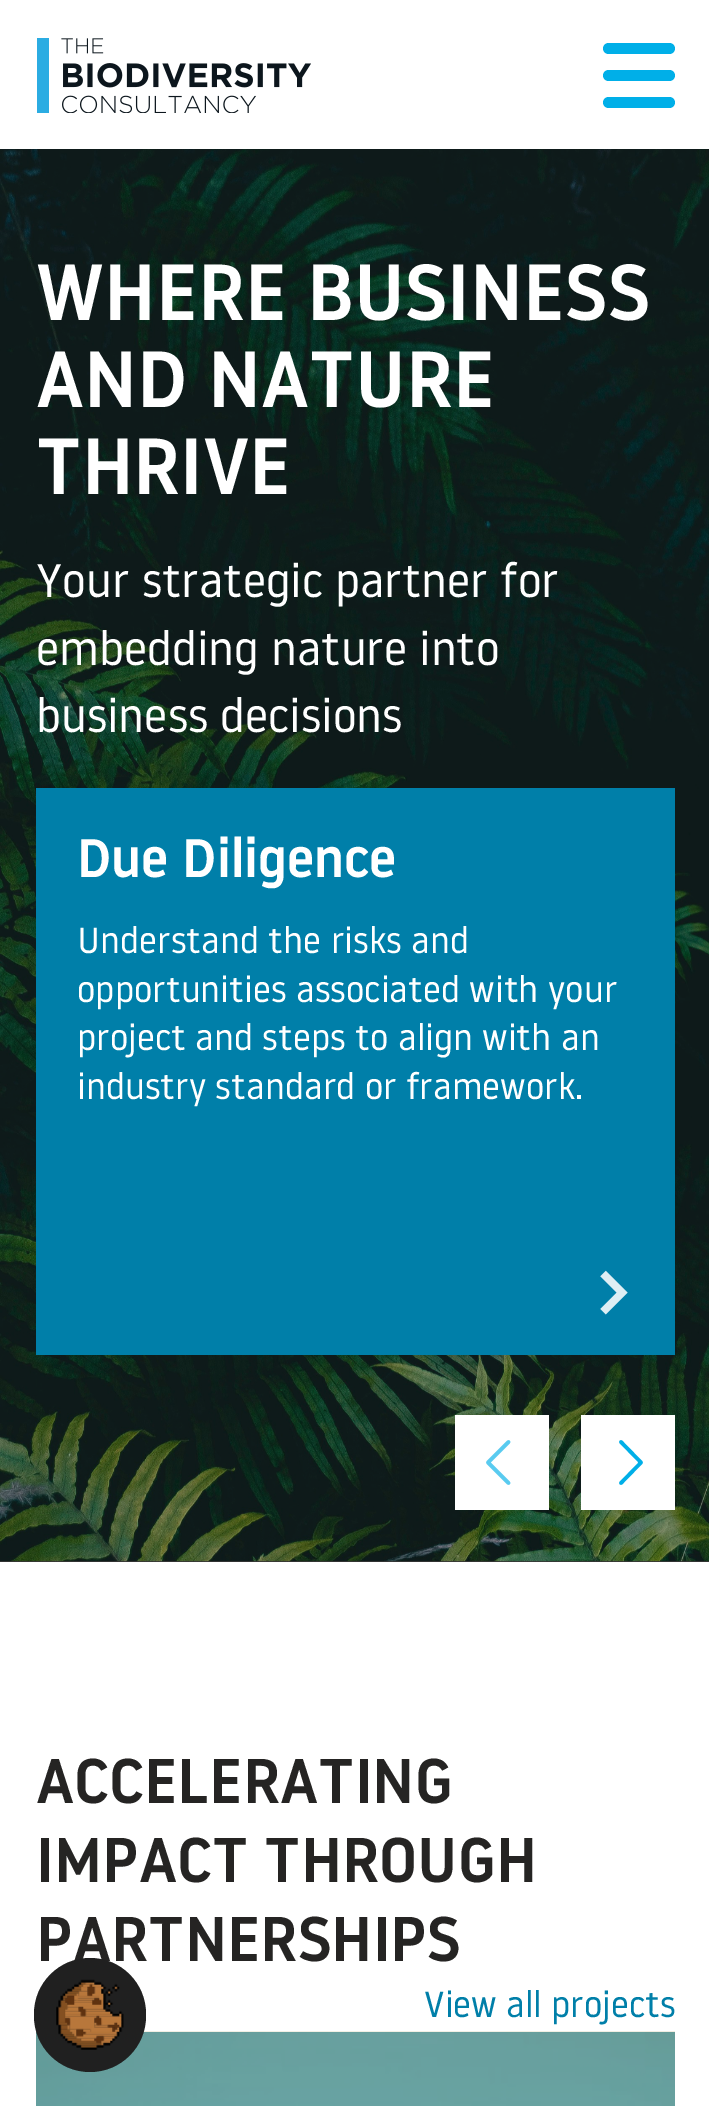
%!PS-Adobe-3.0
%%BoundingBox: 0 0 709 2106
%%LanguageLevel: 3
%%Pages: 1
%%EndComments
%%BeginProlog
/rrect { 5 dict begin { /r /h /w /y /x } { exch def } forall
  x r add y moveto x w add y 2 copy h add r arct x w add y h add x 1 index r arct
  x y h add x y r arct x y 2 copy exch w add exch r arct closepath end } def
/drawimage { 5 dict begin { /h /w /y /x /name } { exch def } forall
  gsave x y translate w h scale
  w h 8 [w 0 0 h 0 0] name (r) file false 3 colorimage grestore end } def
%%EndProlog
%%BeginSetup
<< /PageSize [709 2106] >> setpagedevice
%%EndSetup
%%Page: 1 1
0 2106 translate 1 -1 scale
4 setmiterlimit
1 setgray
0 0 709 2106 rectfill
(images/1.raw) 37 38 274 75 drawimage
0 0.686 0.91 setrgbcolor
603 43 72 11 5.5 rrect fill
603 70 72 11 5.5 rrect fill
603 97 72 11 5.5 rrect fill
0.118 0.114 0.11 setrgbcolor
0 1561 709 1 rectfill
(images/2.raw) 0 149 709 1413 drawimage
0 0.498 0.663 setrgbcolor
36 788 639 567 rectfill
(images/3.raw) 600 1270 28 45 drawimage
1 setgray
455 1415 94 95 rectfill
0.349 0.796 0.941 setrgbcolor
3.6 setlinewidth
1 setlinecap
1 setlinejoin
newpath 508.5 1442 moveto 488 1462.5 lineto 508.5 1483 lineto stroke
1 setgray
581 1415 94 95 rectfill
0 0.686 0.91 setrgbcolor
newpath 621 1442 moveto 641 1462.5 lineto 621 1483 lineto stroke
(images/4.raw) 36 2031 639 75 drawimage
/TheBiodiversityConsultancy-Medium [79.25 0 0 -79.25 0 0] selectfont
1 setgray
36 320 moveto (WHERE BUSINESS) show
36 407 moveto (AND NATURE) show
36 494 moveto (THRIVE) show
/TheBiodiversityConsultancy-Regular [46.75 0 0 -46.75 0 0] selectfont
36 597 moveto (Your strategic partner for) show
36 665 moveto (embedding nature into) show
36 732 moveto (business decisions) show
/TheBiodiversityConsultancy-Medium [54 0 0 -54 0 0] selectfont
77 877 moveto (Due Diligence) show
/TheBiodiversityConsultancy-Regular [36 0 0 -36 0 0] selectfont
77 953 moveto (Understand the risks and) show
77 1002 moveto (opportunities associated with your) show
77 1050 moveto (project and steps to align with an) show
77 1099 moveto (industry standard or framework.) show
/TheBiodiversityConsultancy-Medium [63 0 0 -63 0 0] selectfont
0.145 0.141 0.137 setrgbcolor
36 1803 moveto (ACCELERATING) show
36 1882 moveto (IMPACT THROUGH) show
36 1961 moveto (PARTNERSHIPS) show
/TheBiodiversityConsultancy-Regular [36 0 0 -36 0 0] selectfont
0 0.498 0.663 setrgbcolor
424 2017 moveto (View all projects) show
0.125 setgray
34 1958 112 114 56 rrect fill
(images/5.raw) 56 1979 68 71 drawimage
showpage
%%EOF
